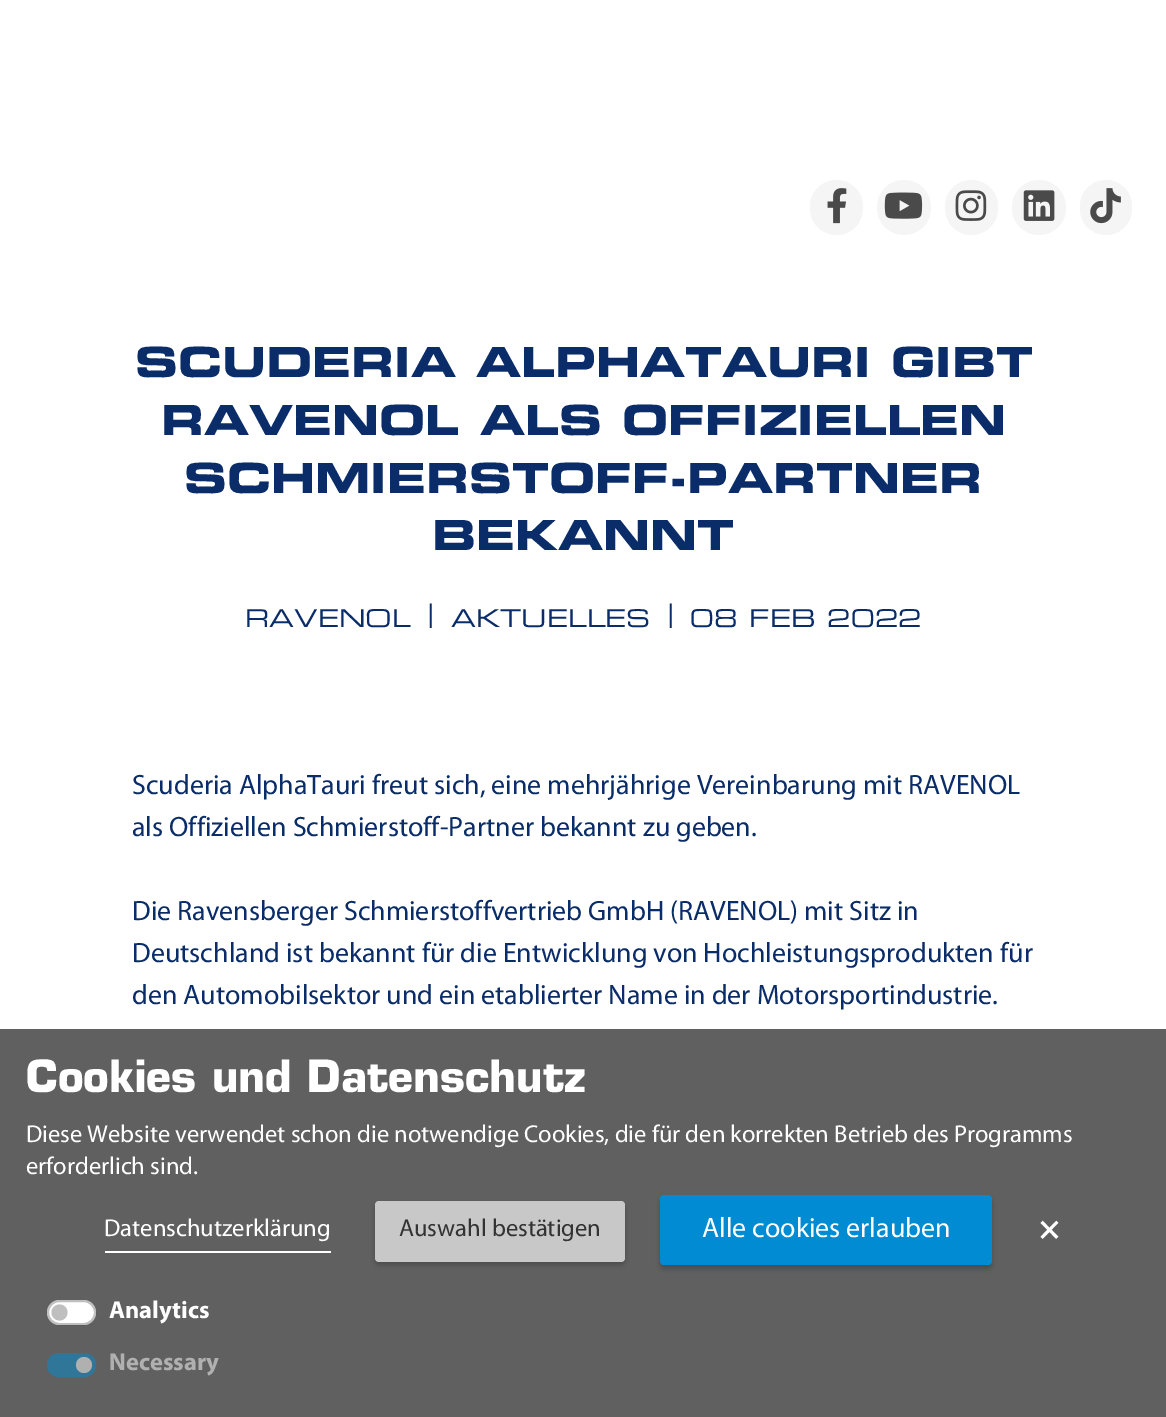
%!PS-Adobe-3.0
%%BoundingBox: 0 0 1166 1417
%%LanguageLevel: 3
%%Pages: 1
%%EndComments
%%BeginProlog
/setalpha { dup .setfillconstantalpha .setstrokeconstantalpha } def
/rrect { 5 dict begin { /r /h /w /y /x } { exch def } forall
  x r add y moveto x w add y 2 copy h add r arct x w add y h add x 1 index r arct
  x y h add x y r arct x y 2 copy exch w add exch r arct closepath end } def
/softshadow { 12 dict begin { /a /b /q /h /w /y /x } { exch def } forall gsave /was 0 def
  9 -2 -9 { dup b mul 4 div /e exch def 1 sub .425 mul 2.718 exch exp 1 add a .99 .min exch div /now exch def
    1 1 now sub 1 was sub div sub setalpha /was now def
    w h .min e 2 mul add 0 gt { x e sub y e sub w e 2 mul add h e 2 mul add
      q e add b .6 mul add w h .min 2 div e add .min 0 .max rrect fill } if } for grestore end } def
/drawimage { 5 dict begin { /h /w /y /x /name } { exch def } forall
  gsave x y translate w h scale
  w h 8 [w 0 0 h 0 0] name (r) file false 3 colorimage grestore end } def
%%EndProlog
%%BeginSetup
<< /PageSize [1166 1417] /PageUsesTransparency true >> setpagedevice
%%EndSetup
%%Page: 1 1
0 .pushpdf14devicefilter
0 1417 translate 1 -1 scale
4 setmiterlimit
1 setgray
0 0 1166 1417 rectfill
0.961 setgray
810 180 53 55 26.5 rrect fill
(images/1.raw) 827 188 20 36 drawimage
877 180 54 55 27 rrect fill
(images/2.raw) 884 192 39 27 drawimage
945 180 53 55 26.5 rrect fill
(images/3.raw) 955 190 32 31 drawimage
1012 180 54 55 27 rrect fill
(images/4.raw) 1023 190 32 31 drawimage
1080 180 52 55 26 rrect fill
(images/5.raw) 1090 188 31 36 drawimage
0.376 setgray
0 1029 1166 388 rectfill
1 setgray
105 1251 226 2 rectfill
0 setgray
375 1204 250 61 4 2.5 0.2 softshadow
0.784 setgray
375 1201 250 61 4 rrect fill
0 setgray
660 1199 332 70 4 2.5 0.2 softshadow
0 0.545 0.824 setrgbcolor
660 1195 332 70 4 rrect fill
1 setgray
47 1300 49 25 12.5 rrect fill
0.749 setgray
newpath 59.5 1312.5 8 0 360 arc closepath fill
0.25 setalpha
0 setgray
2 setlinewidth
48 1301 47 23 11.5 rrect stroke
1 setalpha
0.188 0.463 0.6 setrgbcolor
47 1353 49 24 12 rrect fill
0.69 setgray
newpath 84 1365 8 0 360 arc closepath fill
0.188 0.463 0.6 setrgbcolor
48 1354 47 22 11 rrect stroke
/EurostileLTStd-Bold [41.5 0 0 -41.5 0 0] selectfont
0.039 0.173 0.408 setrgbcolor
135 377 moveto (SCUDERIA ALPHATAURI GIBT) show
161 435 moveto (RAVENOL ALS OFFIZIELLEN) show
184 493 moveto (SCHMIERSTOFF-PARTNER) show
432 550 moveto (BEKANNT) show
/EurostileLTStd-Regular [24.5 0 0 -24.5 0 0] selectfont
245 627 moveto (RAVENOL) show
428 622 moveto (|) show
451 627 moveto (AKTUELLES) show
668 622 moveto (|) show
690 627 moveto (08 FEB 2022) show
/Myriad-Regular [28 0 0 -28 0 0] selectfont
132 794 moveto (Scuderia AlphaTauri freut sich, eine mehrjährige Vereinbarung mit RAVENOL) show
132 836 moveto (als Offiziellen Schmierstoff-Partner bekannt zu geben.) show
132 920 moveto (Die Ravensberger Schmierstoffvertrieb GmbH \(RAVENOL\) mit Sitz in) show
132 962 moveto (Deutschland ist bekannt für die Entwicklung von Hochleistungsprodukten für) show
132 1004 moveto (den Automobilsektor und ein etablierter Name in der Motorsportindustrie.) show
/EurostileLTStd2-Bold [43.4 0 0 -43.4 0 0] selectfont
1 setgray
26 1092 moveto (Cookies und Datenschutz) show
/Myriad-Regular [24.5 0 0 -24.5 0 0] selectfont
26 1142 moveto (Diese Website verwendet schon die notwendige Cookies, die für den korrekten Betrieb des Programms) show
26 1174 moveto (erforderlich sind.) show
104 1236 moveto (Datenschutzerklärung) show
0.2 setgray
399 1236 moveto (Auswahl bestätigen) show
/Myriad-Regular [28 0 0 -28 0 0] selectfont
1 setgray
702 1237 moveto (Alle cookies erlauben) show
/Myriad-Bold [35 0 0 -35 0 0] selectfont
1039 1239 moveto (×) show
/Myriad-Bold [24.5 0 0 -24.5 0 0] selectfont
109 1318 moveto (Analytics) show
0.69 setgray
109 1370 moveto (Necessary) show
.poppdf14devicefilter showpage
%%EOF
